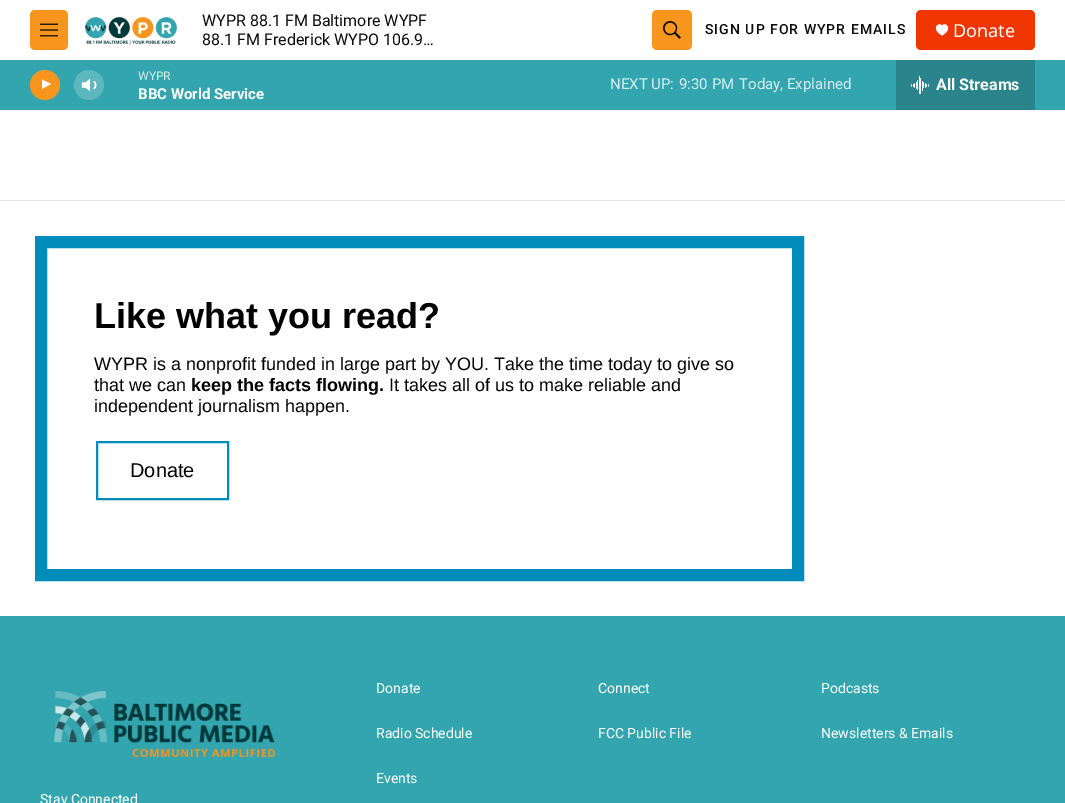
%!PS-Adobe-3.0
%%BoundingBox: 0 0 1065 803
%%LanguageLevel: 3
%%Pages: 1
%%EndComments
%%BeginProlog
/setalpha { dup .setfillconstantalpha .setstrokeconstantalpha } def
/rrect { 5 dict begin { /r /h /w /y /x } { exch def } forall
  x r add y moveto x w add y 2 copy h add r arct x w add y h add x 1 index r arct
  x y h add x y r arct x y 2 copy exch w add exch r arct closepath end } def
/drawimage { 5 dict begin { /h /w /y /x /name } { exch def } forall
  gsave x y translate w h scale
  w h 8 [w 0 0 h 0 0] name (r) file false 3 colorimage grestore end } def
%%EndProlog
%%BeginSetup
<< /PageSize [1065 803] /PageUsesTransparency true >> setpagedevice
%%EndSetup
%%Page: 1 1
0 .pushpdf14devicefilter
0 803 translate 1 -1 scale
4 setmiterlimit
1 setgray
0 0 1065 803 rectfill
0.961 setgray
0 110 1065 1 rectfill
0.973 0.584 0.114 setrgbcolor
30 10 38 40 5 rrect fill
(images/1.raw) 40 23 18 14 drawimage
(images/2.raw) 85 16 92 29 drawimage
652 10 40 40 5 rrect fill
(images/3.raw) 663 21 18 18 drawimage
0.937 0.212 0 setrgbcolor
916 10 119 40 5 rrect fill
1 setgray
newpath 942 26 moveto 940 21 929.5 28 942 35.5 curveto 954.5 28 944 21 942 26 curveto closepath fill
0.2 0.647 0.682 setrgbcolor
0 60 1065 50 rectfill
0.973 0.584 0.114 setrgbcolor
newpath 45 85 15 0 360 arc closepath fill
gsave
42 78 12 15 rectclip
1 setgray
newpath 41.5 79.5 moveto 51 84 lineto 41.5 89 lineto closepath fill
grestore
(images/4.raw) 81 78 16 14 drawimage
0.2 setalpha
1 setgray
newpath 89 85 15 0 360 arc closepath fill
1 setalpha
0.161 0.518 0.545 setrgbcolor
896 60 139 50 rectfill
(images/5.raw) 911 76 18 18 drawimage
0.902 setgray
0 200 1065 1 rectfill
0 0.549 0.729 setrgbcolor
12 setlinewidth
41 242 757 333 rectstroke
2 setlinewidth
97 442 131 57 rectstroke
0.2 0.647 0.682 setrgbcolor
0 616 1065 187 rectfill
(images/6.raw) 54 691 221 67 drawimage
/Roboto-Regular [16 0 0 -16 0 0] selectfont
0.051 0.043 0.043 setrgbcolor
202 26 moveto (WYPR 88.1 FM Baltimore WYPF) show
202 45 moveto (88.1 FM Frederick WYPO 106.9…) show
/Roboto-Medium [14 0 0 -14 0 0] selectfont
705 34 moveto 1 0 (SIGN UP FOR WYPR EMAILS) ashow
/NotoSans-Regular [18 0 0 -18 0 0] selectfont
1 setgray
953 37 moveto (Donate) show
/Roboto-Regular [12 0 0 -12 0 0] selectfont
0.839 0.929 0.937 setrgbcolor
138 80 moveto (WYPR) show
/Roboto-Bold [15 0 0 -15 0 0] selectfont
1 setgray
138 99 moveto (BBC World Service) show
/Roboto-Regular [15 0 0 -15 0 0] selectfont
0.839 0.929 0.937 setrgbcolor
610 89 moveto (NEXT UP:) show
679 89 moveto (9:30 PM) show
739 89 moveto (Today, Explained) show
/Roboto-Bold [16 0 0 -16 0 0] selectfont
1 setgray
936 90 moveto (All Streams) show
/LiberationSans-Bold [36 0 0 -36 0 0] selectfont
0 setgray
94 328 moveto (Like what you read?) show
/LiberationSans-Regular [18 0 0 -18 0 0] selectfont
94 370 moveto (WYPR is a nonprofit funded in large part by YOU. Take the time today to give so) show
94 391 moveto (that we can) show
/LiberationSans-Bold [18 0 0 -18 0 0] selectfont
191 391 moveto (keep the facts flowing.) show
/LiberationSans-Regular [18 0 0 -18 0 0] selectfont
389 391 moveto (It takes all of us to make reliable and) show
94 412 moveto (independent journalism happen.) show
/LiberationSans-Regular [20 0 0 -20 0 0] selectfont
130 477 moveto (Donate) show
/Roboto-Regular [14 0 0 -14 0 0] selectfont
1 setgray
376 693 moveto (Donate) show
598 693 moveto (Connect) show
821 693 moveto (Podcasts) show
376 738 moveto (Radio Schedule) show
598 738 moveto (FCC Public File) show
821 738 moveto (Newsletters & Emails) show
376 783 moveto (Events) show
40 804 moveto (Stay Connected) show
.poppdf14devicefilter showpage
%%EOF
